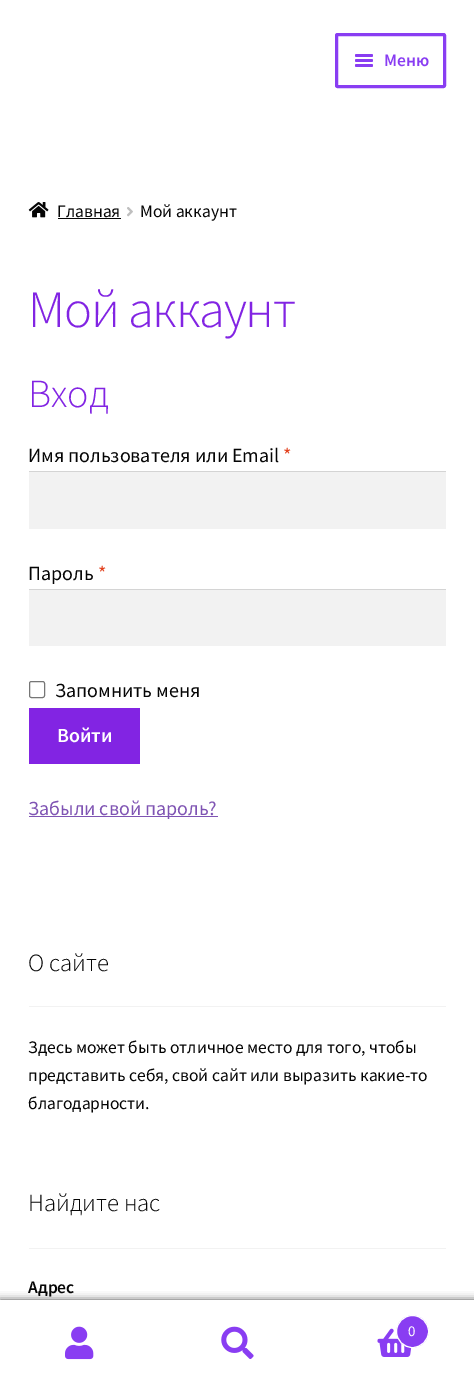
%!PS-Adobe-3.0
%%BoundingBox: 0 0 474 1386
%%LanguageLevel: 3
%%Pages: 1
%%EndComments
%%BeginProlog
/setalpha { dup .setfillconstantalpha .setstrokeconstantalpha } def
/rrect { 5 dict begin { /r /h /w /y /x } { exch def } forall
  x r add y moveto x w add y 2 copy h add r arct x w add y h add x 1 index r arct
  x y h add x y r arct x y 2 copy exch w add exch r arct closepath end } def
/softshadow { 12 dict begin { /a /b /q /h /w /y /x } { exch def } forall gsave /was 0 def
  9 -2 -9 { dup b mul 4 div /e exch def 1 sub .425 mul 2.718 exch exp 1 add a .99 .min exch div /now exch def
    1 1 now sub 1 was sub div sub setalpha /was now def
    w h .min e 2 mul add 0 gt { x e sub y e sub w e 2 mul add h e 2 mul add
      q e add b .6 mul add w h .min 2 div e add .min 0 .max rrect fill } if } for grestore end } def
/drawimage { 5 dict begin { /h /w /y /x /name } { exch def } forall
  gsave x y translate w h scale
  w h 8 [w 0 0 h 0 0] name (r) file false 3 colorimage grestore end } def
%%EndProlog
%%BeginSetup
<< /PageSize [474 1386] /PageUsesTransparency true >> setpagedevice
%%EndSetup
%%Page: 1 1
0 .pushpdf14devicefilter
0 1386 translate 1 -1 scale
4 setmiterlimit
1 setgray
0 0 474 1386 rectfill
0.537 0.239 0.949 setrgbcolor
3 setlinewidth
336.5 34.5 108 52 1 rrect stroke
355 54 18 3 1.5 rrect fill
355 59 18 3 1.5 rrect fill
355 64 18 3 1.5 rrect fill
(images/1.raw) 28 202 21 16 drawimage
0.02 setgray
58 218 63 1 rectfill
(images/2.raw) 127 207 6 10 drawimage
0.949 setgray
29 472 417 57 rectfill
0.831 setgray
29 471 417 1 rectfill
0.949 setgray
29 590 417 56 rectfill
0.831 setgray
29 589 417 1 rectfill
0.463 setgray
1 setlinewidth
29.5 681.5 15 16 2 rrect stroke
0.51 0.141 0.89 setrgbcolor
29 708 111 56 rectfill
0.498 0.329 0.702 setrgbcolor
29 816 189 1 rectfill
0.949 setgray
29 1006 417 1 rectfill
29 1248 417 1 rectfill
0 setgray
0 1300 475 86 0 4 0.7 softshadow
1 setgray
0 1300 474 1 rectfill
0 1301 474 85 rectfill
(images/3.raw) 65 1326 29 34 drawimage
(images/4.raw) 221 1326 33 33 drawimage
(images/5.raw) 377 1328 35 29 drawimage
0.537 0.239 0.949 setrgbcolor
newpath 412.5 1331.5 16 0 360 arc closepath gsave fill grestore
1 setgray
stroke
/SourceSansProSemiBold-SemiBold [17.5 0 0 -17.5 0 0] selectfont
0.537 0.239 0.949 setrgbcolor
384 66 moveto (Меню) show
/SourceSansPro-Regular [17.5 0 0 -17.5 0 0] selectfont
0.02 setgray
57 217 moveto (Главная) show
140 217 moveto (Мой аккаунт) show
/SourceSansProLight-Light [52.5 0 0 -52.5 0 0] selectfont
0.51 0.141 0.89 setrgbcolor
28 327 moveto -1.25 0 (Мой аккаунт) ashow
/SourceSansProLight-Light [40 0 0 -40 0 0] selectfont
28 407 moveto (Вход) show
/SourceSansPro-Regular [20 0 0 -20 0 0] selectfont
0.02 setgray
28 462 moveto (Имя пользователя или Email) show
0.886 0.251 0.11 setrgbcolor
283 462 moveto (*) show
0.02 setgray
28 580 moveto (Пароль) show
0.886 0.251 0.11 setrgbcolor
98 580 moveto (*) show
0.02 setgray
55 697 moveto (Запомнить меня) show
/SourceSansProSemiBold-SemiBold [20 0 0 -20 0 0] selectfont
1 setgray
57 742 moveto (Войти) show
/SourceSansPro-Regular [20 0 0 -20 0 0] selectfont
0.498 0.329 0.702 setrgbcolor
28 815 moveto (Забыли свой пароль?) show
/SourceSansProLight-Light [24.75 0 0 -24.75 0 0] selectfont
0.02 setgray
28 971 moveto (О сайте) show
/SourceSansPro-Regular [17.5 0 0 -17.5 0 0] selectfont
28 1053 moveto (Здесь может быть отличное место для того, чтобы) show
28 1081 moveto (представить себя, свой сайт или выразить какие-то) show
28 1109 moveto (благодарности.) show
/SourceSansProLight-Light [24.75 0 0 -24.75 0 0] selectfont
28 1211 moveto (Найдите нас) show
/SourceSansProSemiBold-SemiBold [17.5 0 0 -17.5 0 0] selectfont
28 1293 moveto (Адрес) show
/SourceSansPro-Regular [15 0 0 -15 0 0] selectfont
1 setgray
408 1336 moveto (0) show
.poppdf14devicefilter showpage
%%EOF
